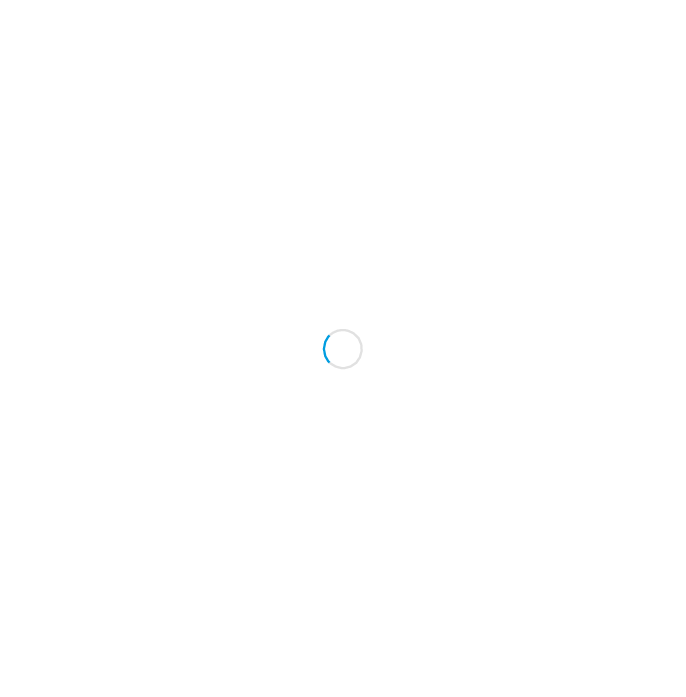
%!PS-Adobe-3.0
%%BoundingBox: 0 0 686 697
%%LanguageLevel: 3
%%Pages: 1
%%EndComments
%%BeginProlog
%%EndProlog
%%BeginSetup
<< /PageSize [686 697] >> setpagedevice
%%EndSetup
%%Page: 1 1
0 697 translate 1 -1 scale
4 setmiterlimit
1 setgray
0 0 686 697 rectfill
0.882 setgray
2 setlinewidth
newpath 329.5 335.5 moveto 334 331 340.5 329 346.5 330.5 curveto 369 335 365.5 368 343 368 curveto 338 368 333 366 329.5 362.5 curveto stroke
0 0.616 0.878 setrgbcolor
newpath 329.5 362.5 moveto 322 355 322 343 329.5 335.5 curveto stroke
showpage
%%EOF
